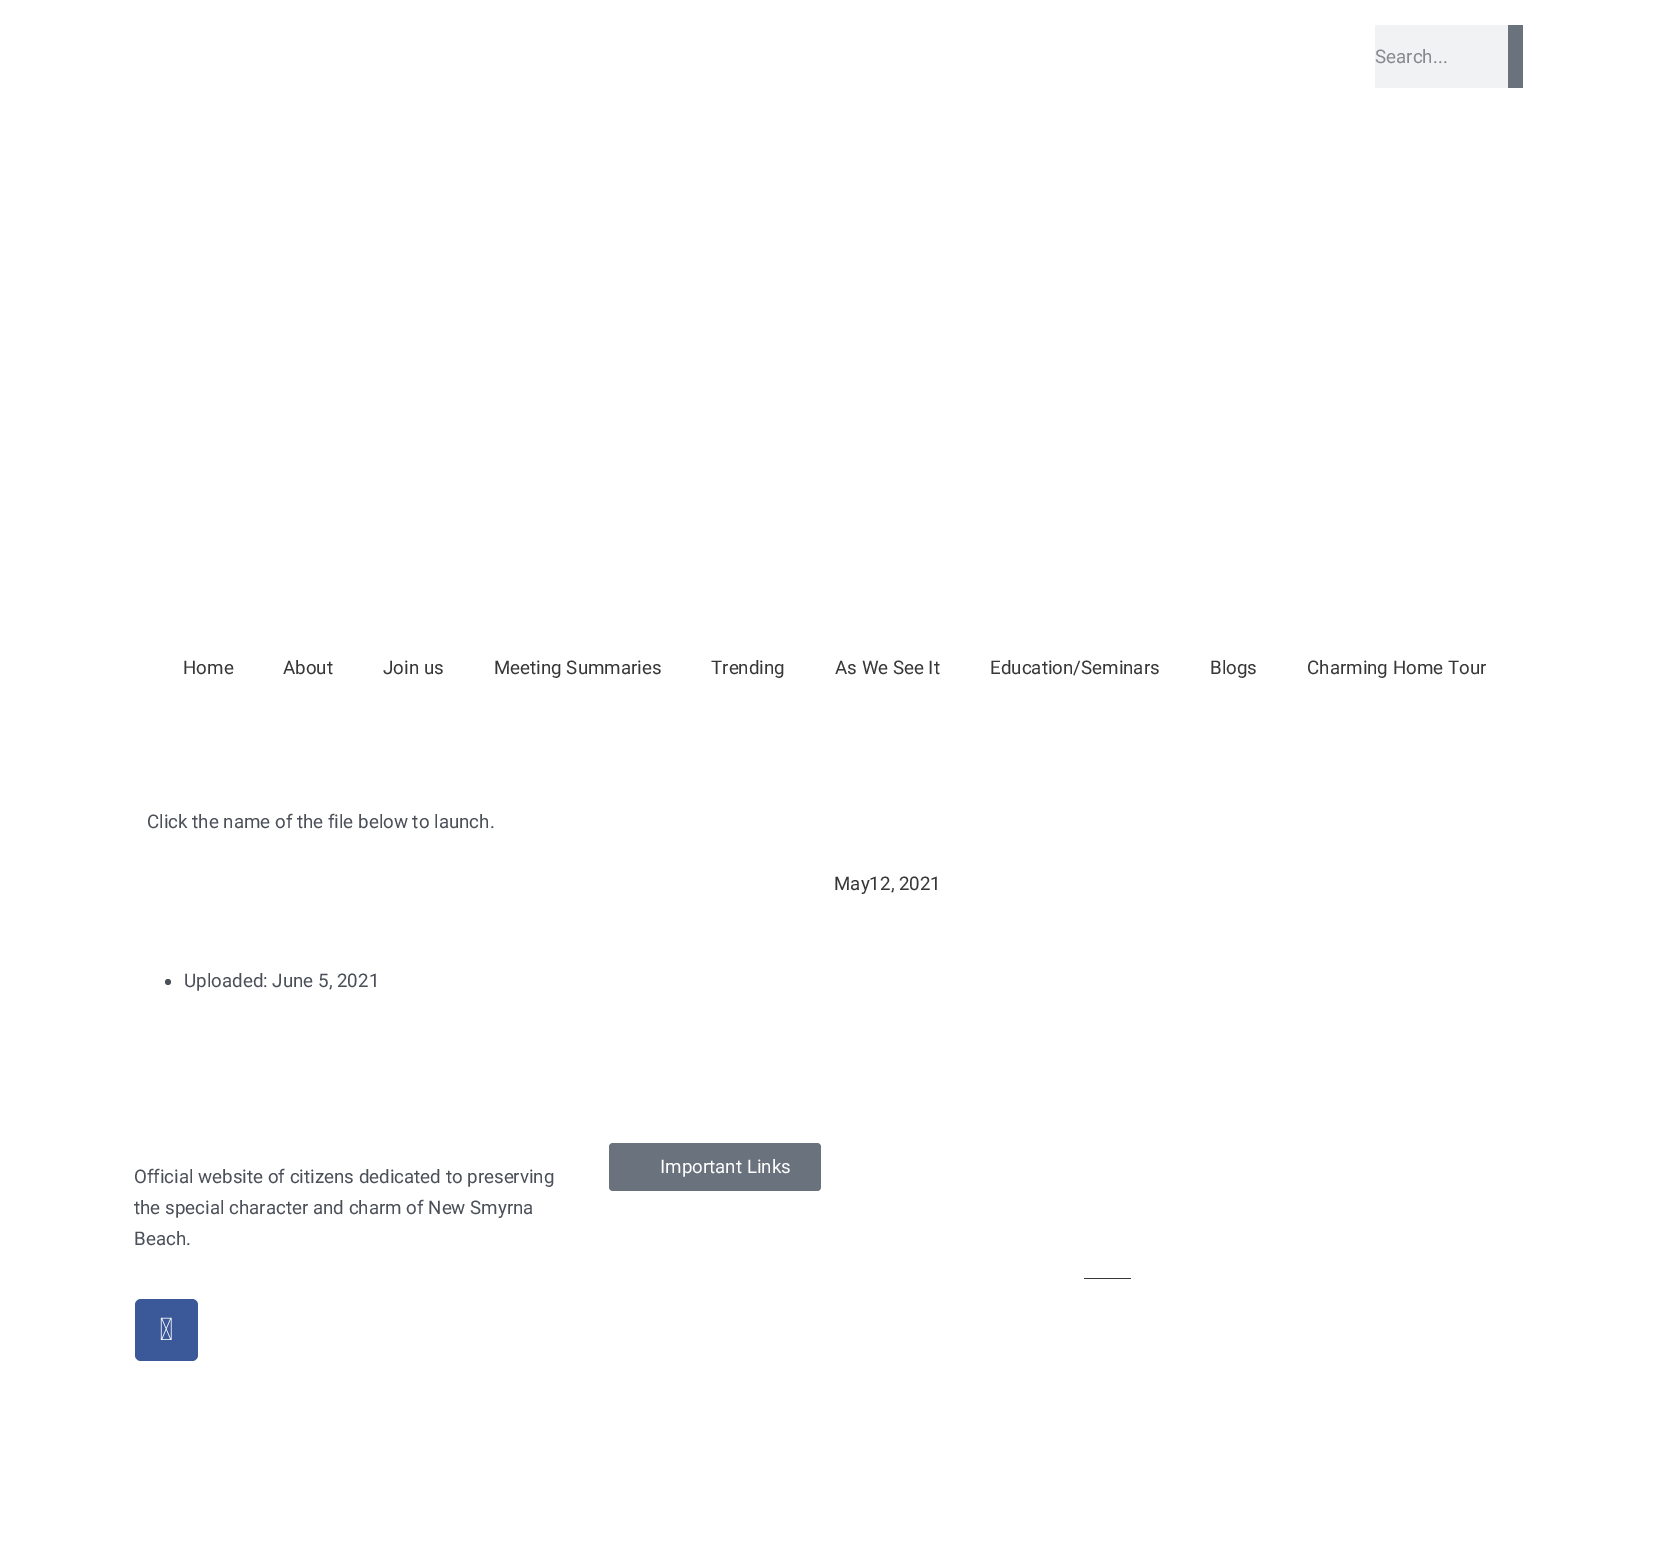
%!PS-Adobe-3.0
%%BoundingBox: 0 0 1668 1542
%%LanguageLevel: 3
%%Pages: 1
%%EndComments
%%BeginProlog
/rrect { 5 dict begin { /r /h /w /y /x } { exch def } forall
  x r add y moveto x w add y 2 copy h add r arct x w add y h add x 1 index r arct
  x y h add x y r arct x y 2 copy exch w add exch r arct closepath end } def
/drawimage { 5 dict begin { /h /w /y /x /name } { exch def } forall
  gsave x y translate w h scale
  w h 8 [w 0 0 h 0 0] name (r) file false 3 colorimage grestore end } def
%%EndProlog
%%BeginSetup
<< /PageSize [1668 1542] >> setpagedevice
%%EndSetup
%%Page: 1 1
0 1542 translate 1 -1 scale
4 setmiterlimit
1 setgray
0 0 1668 1542 rectfill
0.945 0.949 0.953 setrgbcolor
1375 25 133 63 rectfill
0.412 0.447 0.49 setrgbcolor
1508 25 15 63 rectfill
0.294 0.31 0.345 setrgbcolor
newpath 168 982 3 0 360 arc closepath fill
0.231 0.349 0.596 setrgbcolor
135 1299 63 62 6 rrect fill
(images/1.raw) 160 1317 12 23 drawimage
0.412 0.447 0.49 setrgbcolor
609 1143 212 48 4 rrect fill
0.216 setgray
1084 1278 47 1 rectfill
/Roboto-Regular [18.75 0 0 -18.75 0 0] selectfont
0.525 0.541 0.557 setrgbcolor
1375 63 moveto (Search...) show
0.216 setgray
183 674 moveto (Home) show
283 674 moveto (About) show
383 674 moveto (Join us) show
494 674 moveto (Meeting Summaries) show
711 674 moveto (Trending) show
835 674 moveto (As We See It) show
990 674 moveto (Education/Seminars) show
1210 674 moveto (Blogs) show
1307 674 moveto (Charming Home Tour) show
0.294 0.31 0.345 setrgbcolor
147 828 moveto (Click the name of the file below to launch.) show
0.216 setgray
834 890 moveto (May12, 2021) show
0.294 0.31 0.345 setrgbcolor
184 987 moveto (Uploaded: June 5, 2021) show
134 1183 moveto (Official website of citizens dedicated to preserving) show
134 1214 moveto (the special character and charm of New Smyrna) show
134 1245 moveto (Beach.) show
1 setgray
660 1173 moveto (Important Links) show
showpage
%%EOF
